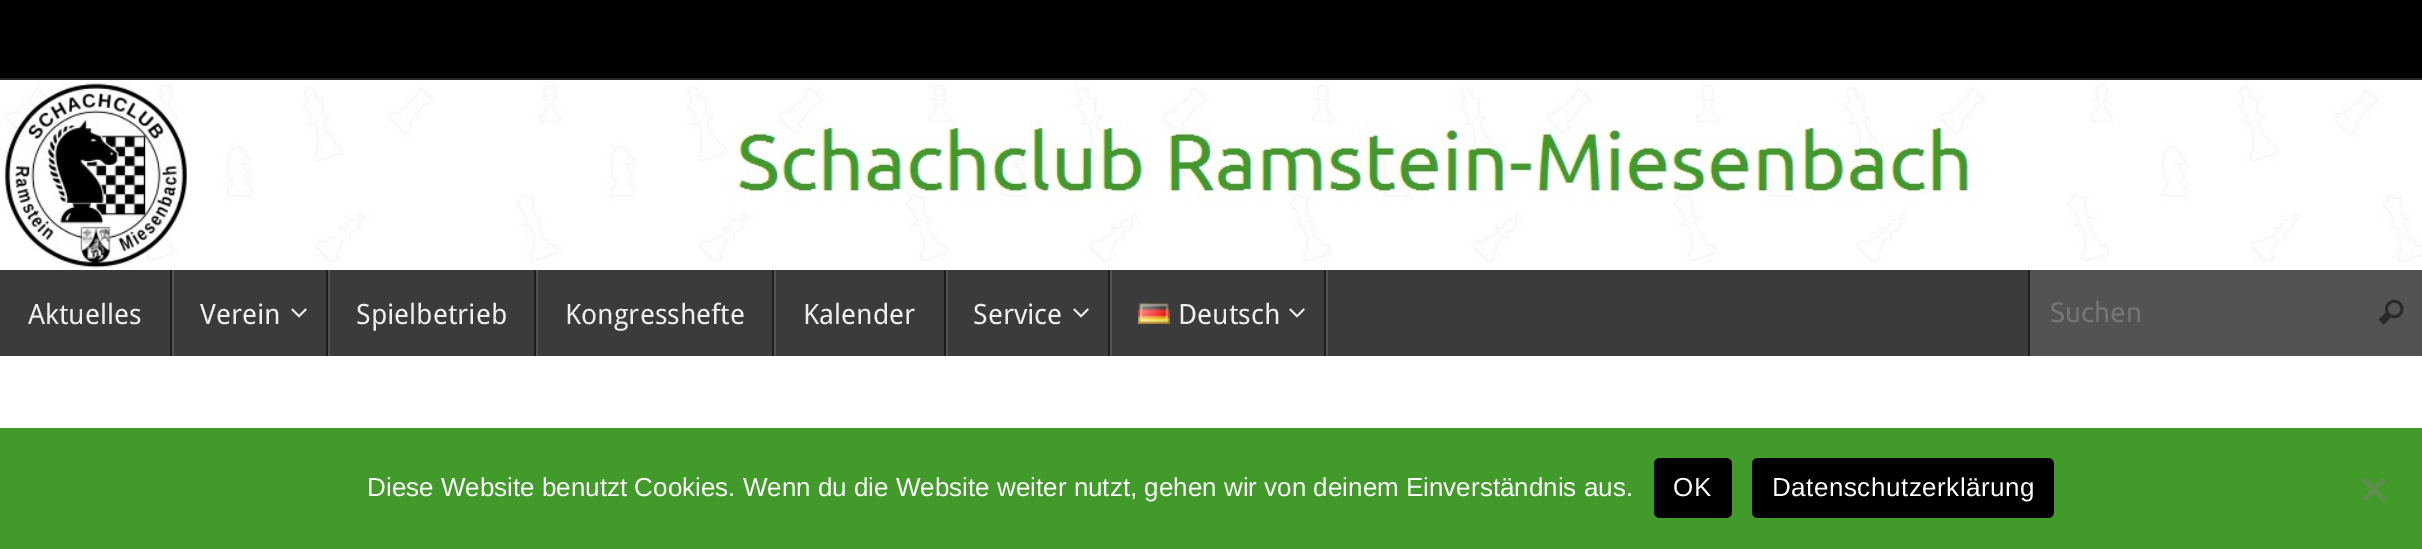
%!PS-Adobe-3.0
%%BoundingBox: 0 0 2422 549
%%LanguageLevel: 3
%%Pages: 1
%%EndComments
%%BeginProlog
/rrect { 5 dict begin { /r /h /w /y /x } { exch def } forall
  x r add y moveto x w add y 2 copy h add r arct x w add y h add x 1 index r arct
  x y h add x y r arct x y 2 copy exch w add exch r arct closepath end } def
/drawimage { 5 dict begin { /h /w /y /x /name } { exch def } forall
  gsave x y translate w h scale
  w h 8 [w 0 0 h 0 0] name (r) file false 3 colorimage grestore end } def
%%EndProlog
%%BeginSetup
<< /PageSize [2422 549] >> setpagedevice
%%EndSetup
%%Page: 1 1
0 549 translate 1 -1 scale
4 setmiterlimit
1 setgray
0 0 2422 549 rectfill
0 setgray
0 0 2422 78 rectfill
0.157 setgray
0 78 2422 2 rectfill
(images/1.raw) 1 80 2421 190 drawimage
0.227 0.231 0.239 setrgbcolor
0 270 2028 86 rectfill
0.322 0.325 0.333 setrgbcolor
172 270 2 86 rectfill
0.11 0.114 0.122 setrgbcolor
170 270 2 86 rectfill
0.322 0.325 0.333 setrgbcolor
328 270 2 86 rectfill
0.11 0.114 0.122 setrgbcolor
326 270 2 86 rectfill
(images/2.raw) 291 308 16 10 drawimage
0.322 0.325 0.333 setrgbcolor
536 270 2 86 rectfill
0.11 0.114 0.122 setrgbcolor
534 270 2 86 rectfill
0.322 0.325 0.333 setrgbcolor
774 270 2 86 rectfill
0.11 0.114 0.122 setrgbcolor
772 270 2 86 rectfill
0.322 0.325 0.333 setrgbcolor
946 270 2 86 rectfill
0.11 0.114 0.122 setrgbcolor
944 270 2 86 rectfill
0.322 0.325 0.333 setrgbcolor
1110 270 2 86 rectfill
0.11 0.114 0.122 setrgbcolor
1108 270 2 86 rectfill
(images/2.raw) 1073 308 16 10 drawimage
0.322 0.325 0.333 setrgbcolor
1326 270 2 86 rectfill
0.11 0.114 0.122 setrgbcolor
1324 270 2 86 rectfill
(images/3.raw) 1138 302 32 22 drawimage
(images/2.raw) 1289 308 16 10 drawimage
0.322 0.325 0.333 setrgbcolor
2030 270 392 86 rectfill
0.11 0.114 0.122 setrgbcolor
2028 270 2 86 rectfill
(images/4.raw) 2378 299 26 26 drawimage
0.259 0.604 0.165 setrgbcolor
0 428 2422 121 rectfill
0 setgray
1654 458 78 60 6 rrect fill
1752 458 302 60 6 rrect fill
0.38 0.553 0.333 setrgbcolor
newpath 2383 477.5 moveto 2386 480.5 lineto 2365 501.5 lineto 2362 498.5 lineto closepath fill
newpath 2362 480.5 moveto 2365 477.5 lineto 2386 498.5 lineto 2383 501.5 lineto closepath fill
/DroidSans-Regular [28 0 0 -28 0 0] selectfont
0.933 setgray
28 324 moveto (Aktuelles) show
200 324 moveto (Verein) show
356 324 moveto (Spielbetrieb) show
565 324 moveto (Kongresshefte) show
803 324 moveto (Kalender) show
973 324 moveto (Service) show
1178 324 moveto (Deutsch) show
/Ubuntu-Regular [28 0 0 -28 0 0] selectfont
0.459 setgray
2050 322 moveto (Suchen) show
/LiberationSans-Regular [26 0 0 -26 0 0] selectfont
1 setgray
367 496 moveto (Diese Website benutzt Cookies. Wenn du die Website weiter nutzt, gehen wir von deinem Einverständnis aus.) show
1673 496 moveto 0.5 0 (OK) ashow
1772 496 moveto 0.5 0 (Datenschutzerklärung) ashow
showpage
%%EOF
